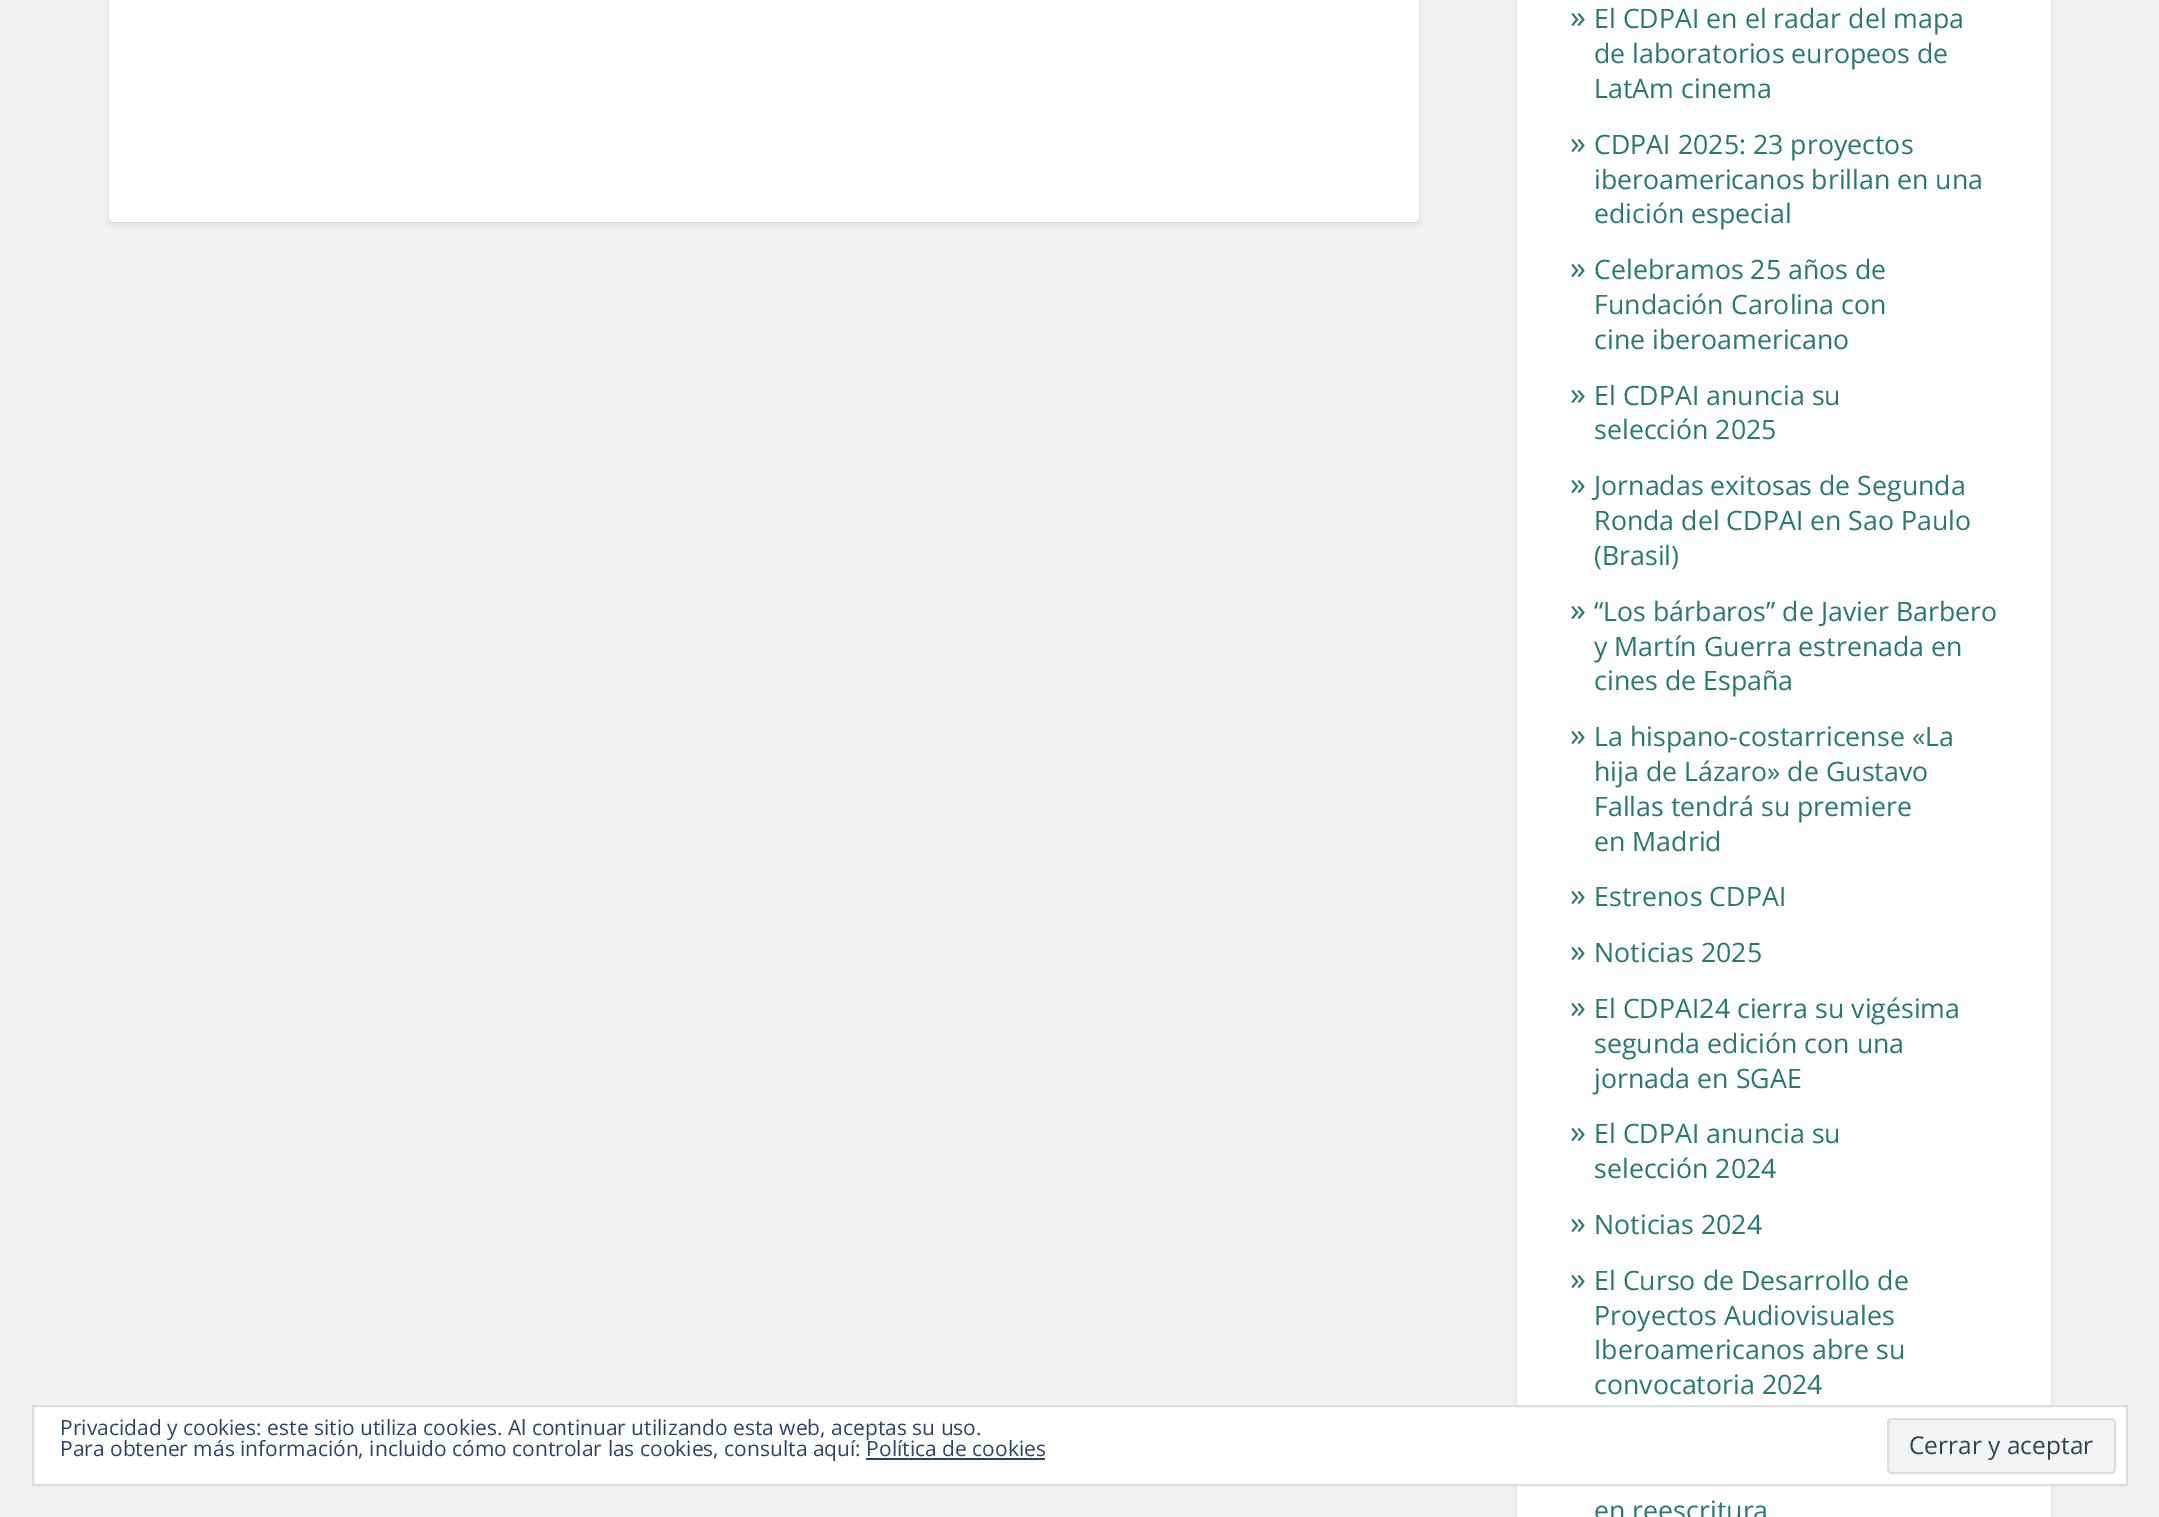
%!PS-Adobe-3.0
%%BoundingBox: 0 0 2159 1517
%%LanguageLevel: 3
%%Pages: 1
%%EndComments
%%BeginProlog
/setalpha { dup .setfillconstantalpha .setstrokeconstantalpha } def
/rrect { 5 dict begin { /r /h /w /y /x } { exch def } forall
  x r add y moveto x w add y 2 copy h add r arct x w add y h add x 1 index r arct
  x y h add x y r arct x y 2 copy exch w add exch r arct closepath end } def
/softshadow { 12 dict begin { /a /b /q /h /w /y /x } { exch def } forall gsave /was 0 def
  9 -2 -9 { dup b mul 4 div /e exch def 1 sub .425 mul 2.718 exch exp 1 add a .99 .min exch div /now exch def
    1 1 now sub 1 was sub div sub setalpha /was now def
    w h .min e 2 mul add 0 gt { x e sub y e sub w e 2 mul add h e 2 mul add
      q e add b .6 mul add w h .min 2 div e add .min 0 .max rrect fill } if } for grestore end } def
%%EndProlog
%%BeginSetup
<< /PageSize [2159 1517] /PageUsesTransparency true >> setpagedevice
%%EndSetup
%%Page: 1 1
0 .pushpdf14devicefilter
0 1517 translate 1 -1 scale
4 setmiterlimit
0.945 0.945 0.949 setrgbcolor
0 0 2159 1517 rectfill
0 setgray
109 -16 1310 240 5 3.5 0.1 softshadow
1 setgray
109 -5 1310 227 5 rrect fill
0 setgray
1517 -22 534 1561 11 3.5 0.1 softshadow
1 setgray
1517 0 534 1517 rectfill
newpath 33 1406 moveto 2127 1406 lineto 2127 1485 lineto 33 1485 lineto closepath gsave fill grestore
0.871 setgray
2 setlinewidth
stroke
0.953 setgray
1888 1419 227 54 4 rrect gsave fill grestore
0.871 setgray
stroke
0.18 0.267 0.404 setrgbcolor
866 1458 179 2 rectfill
/OpenSans-Regular [32 0 0 -32 0 0] selectfont
0.157 0.478 0.439 setrgbcolor
1570 28 moveto (») show
/OpenSans-Regular [26.75 0 0 -26.75 0 0] selectfont
1594 28 moveto (El CDPAI en el radar del mapa) show
1594 63 moveto (de laboratorios europeos de) show
1594 98 moveto (LatAm cinema) show
/OpenSans-Regular [32 0 0 -32 0 0] selectfont
1570 154 moveto (») show
/OpenSans-Regular [26.75 0 0 -26.75 0 0] selectfont
1594 154 moveto (CDPAI 2025: 23 proyectos) show
1594 189 moveto (iberoamericanos brillan en una) show
1594 223 moveto (edición especial) show
/OpenSans-Regular [32 0 0 -32 0 0] selectfont
1570 279 moveto (») show
/OpenSans-Regular [26.75 0 0 -26.75 0 0] selectfont
1594 279 moveto (Celebramos 25 años de) show
1594 314 moveto (Fundación Carolina con) show
1594 349 moveto (cine iberoamericano) show
/OpenSans-Regular [32 0 0 -32 0 0] selectfont
1570 405 moveto (») show
/OpenSans-Regular [26.75 0 0 -26.75 0 0] selectfont
1594 405 moveto (El CDPAI anuncia su) show
1594 439 moveto (selección 2025) show
/OpenSans-Regular [32 0 0 -32 0 0] selectfont
1570 495 moveto (») show
/OpenSans-Regular [26.75 0 0 -26.75 0 0] selectfont
1594 495 moveto (Jornadas exitosas de Segunda) show
1594 530 moveto (Ronda del CDPAI en Sao Paulo) show
1594 565 moveto (\(Brasil\)) show
/OpenSans-Regular [32 0 0 -32 0 0] selectfont
1570 621 moveto (») show
/OpenSans-Regular [26.75 0 0 -26.75 0 0] selectfont
1594 621 moveto (“Los bárbaros” de Javier Barbero) show
1594 656 moveto (y Martín Guerra estrenada en) show
1594 690 moveto (cines de España) show
/OpenSans-Regular [32 0 0 -32 0 0] selectfont
1570 746 moveto (») show
/OpenSans-Regular [26.75 0 0 -26.75 0 0] selectfont
1594 746 moveto (La hispano-costarricense «La) show
1594 781 moveto (hija de Lázaro» de Gustavo) show
1594 816 moveto (Fallas tendrá su premiere) show
1594 851 moveto (en Madrid) show
/OpenSans-Regular [32 0 0 -32 0 0] selectfont
1570 906 moveto (») show
/OpenSans-Regular [26.75 0 0 -26.75 0 0] selectfont
1594 906 moveto (Estrenos CDPAI) show
/OpenSans-Regular [32 0 0 -32 0 0] selectfont
1570 962 moveto (») show
/OpenSans-Regular [26.75 0 0 -26.75 0 0] selectfont
1594 962 moveto (Noticias 2025) show
/OpenSans-Regular [32 0 0 -32 0 0] selectfont
1570 1018 moveto (») show
/OpenSans-Regular [26.75 0 0 -26.75 0 0] selectfont
1594 1018 moveto (El CDPAI24 cierra su vigésima) show
1594 1053 moveto (segunda edición con una) show
1594 1088 moveto (jornada en SGAE) show
/OpenSans-Regular [32 0 0 -32 0 0] selectfont
1570 1143 moveto (») show
/OpenSans-Regular [26.75 0 0 -26.75 0 0] selectfont
1594 1143 moveto (El CDPAI anuncia su) show
1594 1178 moveto (selección 2024) show
/OpenSans-Regular [32 0 0 -32 0 0] selectfont
1570 1234 moveto (») show
/OpenSans-Regular [26.75 0 0 -26.75 0 0] selectfont
1594 1234 moveto (Noticias 2024) show
/OpenSans-Regular [32 0 0 -32 0 0] selectfont
1570 1290 moveto (») show
/OpenSans-Regular [26.75 0 0 -26.75 0 0] selectfont
1594 1290 moveto (El Curso de Desarrollo de) show
1594 1325 moveto (Proyectos Audiovisuales) show
1594 1359 moveto (Iberoamericanos abre su) show
1594 1394 moveto (convocatoria 2024) show
1594 1520 moveto (en reescritura) show
/OpenSans-Regular [21 0 0 -21 0 0] selectfont
0.18 0.267 0.404 setrgbcolor
60 1435 moveto (Privacidad y cookies: este sitio utiliza cookies. Al continuar utilizando esta web, aceptas su uso.) show
60 1456 moveto (Para obtener más información, incluido cómo controlar las cookies, consulta aquí: Política de cookies) show
/OpenSans-Regular [24.5 0 0 -24.5 0 0] selectfont
0.18 0.267 0.325 setrgbcolor
1909 1454 moveto (Cerrar y aceptar) show
.poppdf14devicefilter showpage
%%EOF
